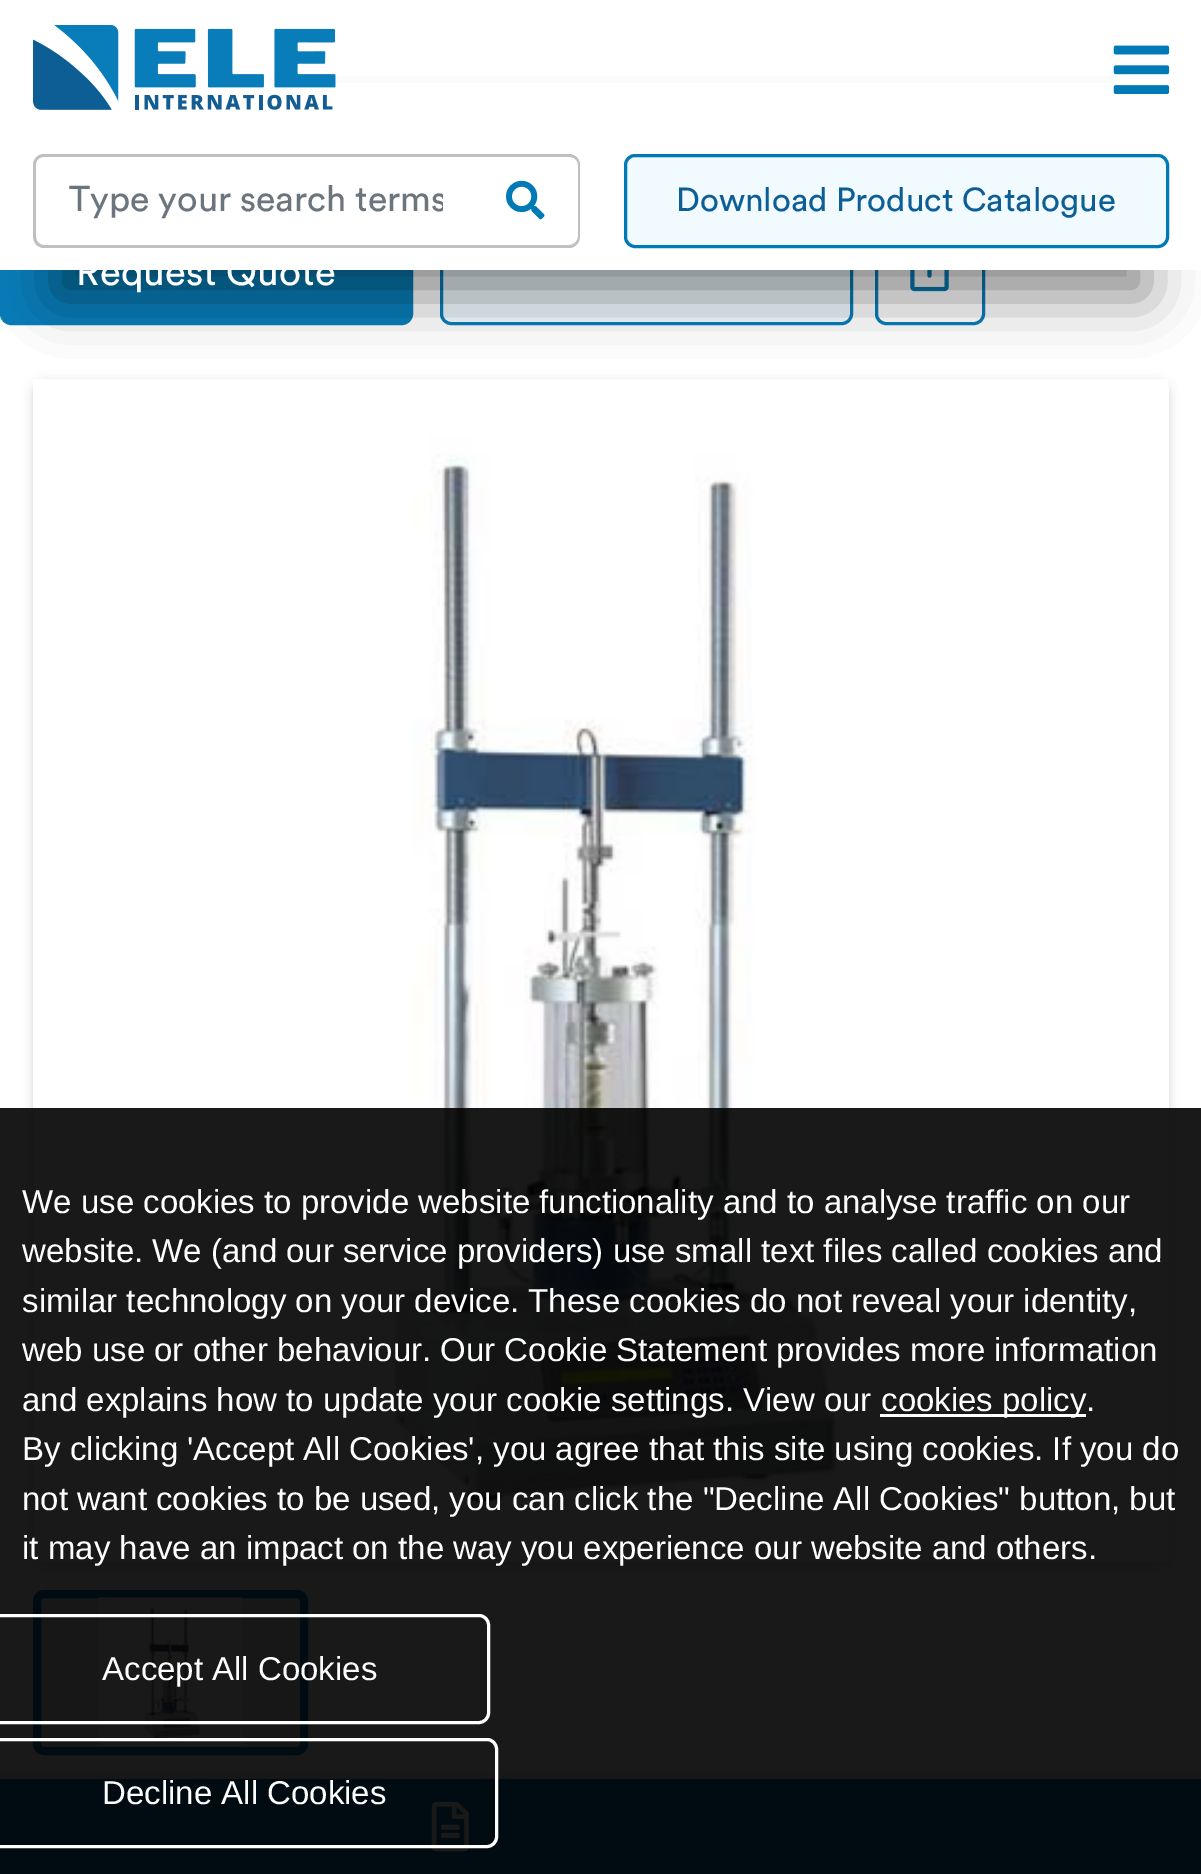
%!PS-Adobe-3.0
%%BoundingBox: 0 0 1201 1874
%%LanguageLevel: 3
%%Pages: 1
%%EndComments
%%BeginProlog
/setalpha { dup .setfillconstantalpha .setstrokeconstantalpha } def
/rrect { 5 dict begin { /r /h /w /y /x } { exch def } forall
  x r add y moveto x w add y 2 copy h add r arct x w add y h add x 1 index r arct
  x y h add x y r arct x y 2 copy exch w add exch r arct closepath end } def
/softshadow { 12 dict begin { /a /b /q /h /w /y /x } { exch def } forall gsave /was 0 def
  9 -2 -9 { dup b mul 4 div /e exch def 1 sub .425 mul 2.718 exch exp 1 add a .99 .min exch div /now exch def
    1 1 now sub 1 was sub div sub setalpha /was now def
    w h .min e 2 mul add 0 gt { x e sub y e sub w e 2 mul add h e 2 mul add
      q e add b .6 mul add w h .min 2 div e add .min 0 .max rrect fill } if } for grestore end } def
/drawimage { 5 dict begin { /h /w /y /x /name } { exch def } forall
  gsave x y translate w h scale
  w h 8 [w 0 0 h 0 0] name (r) file false 3 colorimage grestore end } def
%%EndProlog
%%BeginSetup
<< /PageSize [1201 1874] /PageUsesTransparency true >> setpagedevice
%%EndSetup
%%Page: 1 1
0 .pushpdf14devicefilter
0 1874 translate 1 -1 scale
4 setmiterlimit
1 setgray
0 0 1201 1874 rectfill
0.031 0.49 0.725 setrgbcolor
1.5 216.5 410 107 9.5 rrect gsave fill grestore
3 setlinewidth
stroke
0.941 0.98 1 setrgbcolor
441.5 216.5 410 107 9.5 rrect gsave fill grestore
0.031 0.49 0.725 setrgbcolor
stroke
876.5 216.5 107 107 9.5 rrect stroke
(images/4.raw) 910 270 39 22 drawimage
0 setgray
33 382 1136 1183 11 5.5 0.16 softshadow
1 setgray
33 380 1136 1182 11 rrect fill
(images/5.raw) 33 379 1136 1183 drawimage
0 setgray
55 138 1092 159 0 27.5 0.45 softshadow
1 setgray
0 83 1201 187 rectfill
(images/1.raw) 33 25 303 85 drawimage
(images/2.raw) 1113 45 57 49 drawimage
0.753 setgray
newpath 473 154 moveto 569 154 lineto 575 154 580 159 580 165 curveto 580 236 lineto 580 243 575 248 569 248 curveto 473 248 lineto closepath 473 157 moveto 569 157 lineto 574 157 578 160 578 165 curveto 578 236 lineto 578 241 574 245 569 245 curveto 473 245 lineto closepath eofill
newpath 44 154 moveto 476 154 lineto 476 248 lineto 44 248 lineto 38 248 33 243 33 236 curveto 33 165 lineto 33 159 38 154 44 154 curveto closepath 44 157 moveto 476 157 lineto 476 245 lineto 44 245 lineto 39 245 36 241 36 236 curveto 36 165 lineto 36 160 39 157 44 157 curveto closepath eofill
(images/3.raw) 506 180 39 40 drawimage
0.941 0.98 1 setrgbcolor
625.5 155.5 542 91 9.5 rrect gsave fill grestore
0 0.478 0.714 setrgbcolor
stroke
0.937 setgray
37 1594 267 157 7 rrect gsave fill grestore
0.031 0.49 0.725 setrgbcolor
8 setlinewidth
stroke
(images/6.raw) 98 1597 145 150 drawimage
0.263 0.278 0.333 setrgbcolor
0 1779 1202 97 0 5 0.27 softshadow
0.031 0.49 0.725 setrgbcolor
0 1779 1201 95 rectfill
(images/7.raw) 431 1801 38 51 drawimage
0.9 setalpha
0 setgray
0 1108 1201 766 rectfill
1 setalpha
1 setgray
880 1414 206 3 rectfill
3 setlinewidth
-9.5 1615.5 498 107 9.5 rrect stroke
-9.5 1739.5 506 107 9.5 rrect stroke
gsave
69 179 374 44 rectclip
/Circular-Regular [35.75 0 0 -35.75 0 0] selectfont
0.424 0.459 0.49 setrgbcolor
69 211 moveto (Type your search terms) show
grestore
/Circular-Regular [33 0 0 -33 0 0] selectfont
0.047 0.369 0.584 setrgbcolor
676 211 moveto (Download Product Catalogue) show
/Circular-Regular [38.5 0 0 -38.5 0 0] selectfont
1 setgray
76 285 moveto (Request Quote) show
/LiberationSans-Regular [33 0 0 -33 0 0] selectfont
22 1213 moveto (We use cookies to provide website functionality and to analyse traffic on our) show
22 1262 moveto (website. We \(and our service providers\) use small text files called cookies and) show
22 1312 moveto (similar technology on your device. These cookies do not reveal your identity,) show
22 1361 moveto (web use or other behaviour. Our Cookie Statement provides more information) show
22 1411 moveto (and explains how to update your cookie settings. View our) show
881 1411 moveto (cookies policy.) show
22 1460 moveto (By clicking 'Accept All Cookies', you agree that this site using cookies. If you do) show
22 1510 moveto (not want cookies to be used, you can click the "Decline All Cookies" button, but) show
22 1559 moveto (it may have an impact on the way you experience our website and others.) show
102 1680 moveto (Accept All Cookies) show
102 1804 moveto (Decline All Cookies) show
.poppdf14devicefilter showpage
%%EOF
